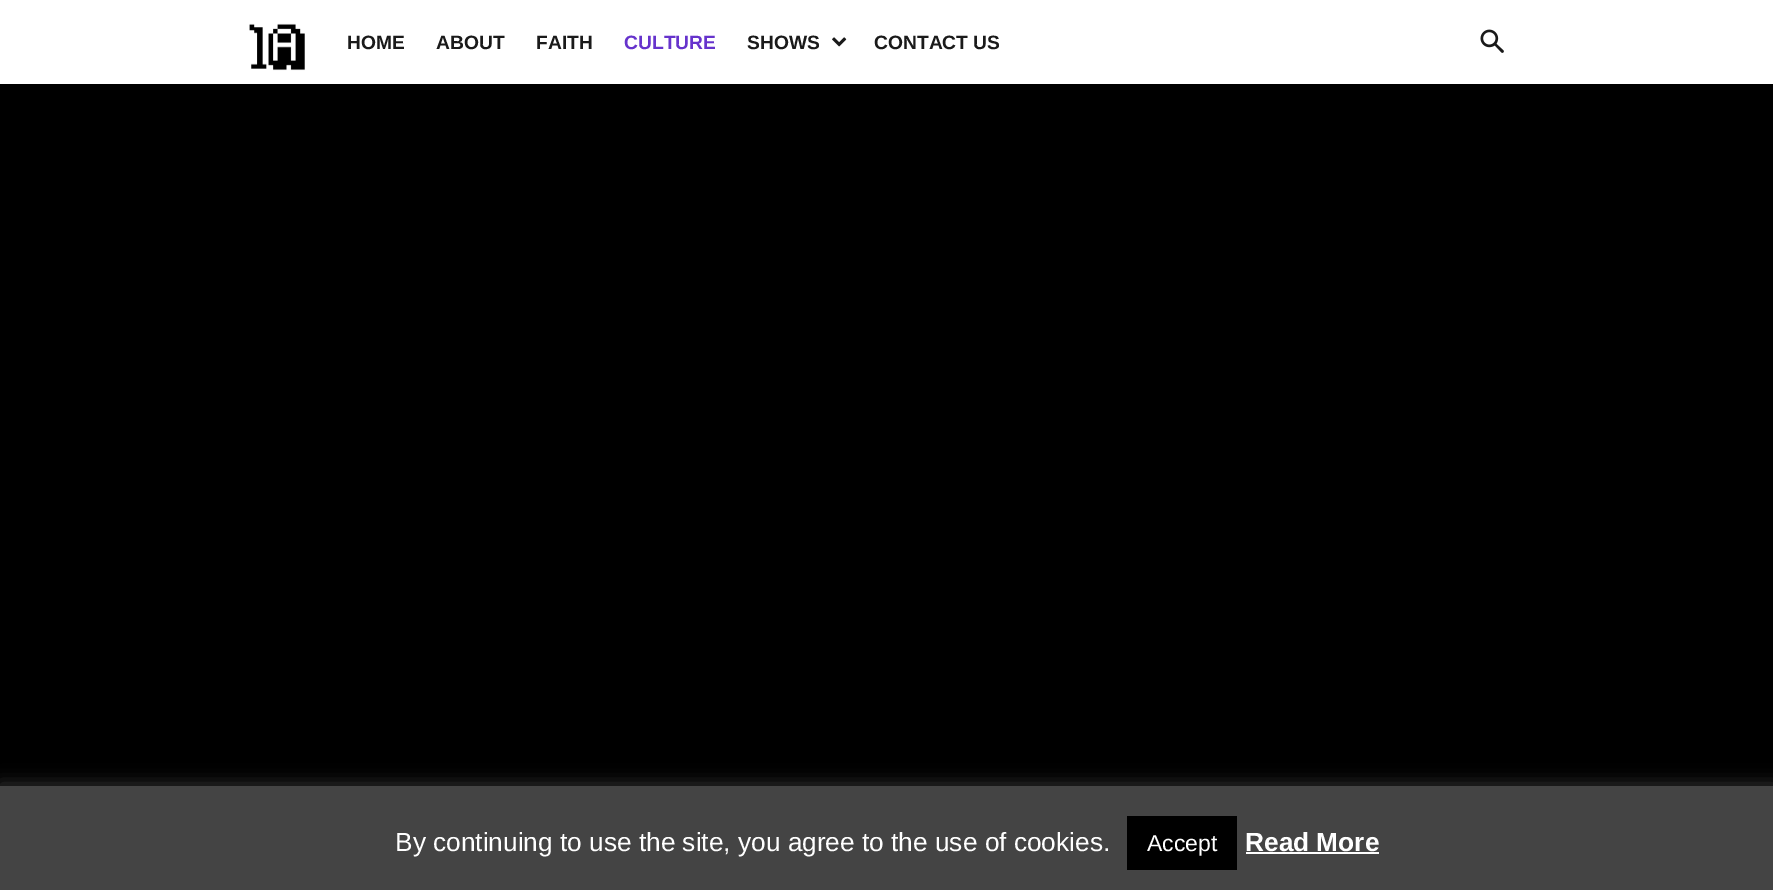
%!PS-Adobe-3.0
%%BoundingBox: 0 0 1773 890
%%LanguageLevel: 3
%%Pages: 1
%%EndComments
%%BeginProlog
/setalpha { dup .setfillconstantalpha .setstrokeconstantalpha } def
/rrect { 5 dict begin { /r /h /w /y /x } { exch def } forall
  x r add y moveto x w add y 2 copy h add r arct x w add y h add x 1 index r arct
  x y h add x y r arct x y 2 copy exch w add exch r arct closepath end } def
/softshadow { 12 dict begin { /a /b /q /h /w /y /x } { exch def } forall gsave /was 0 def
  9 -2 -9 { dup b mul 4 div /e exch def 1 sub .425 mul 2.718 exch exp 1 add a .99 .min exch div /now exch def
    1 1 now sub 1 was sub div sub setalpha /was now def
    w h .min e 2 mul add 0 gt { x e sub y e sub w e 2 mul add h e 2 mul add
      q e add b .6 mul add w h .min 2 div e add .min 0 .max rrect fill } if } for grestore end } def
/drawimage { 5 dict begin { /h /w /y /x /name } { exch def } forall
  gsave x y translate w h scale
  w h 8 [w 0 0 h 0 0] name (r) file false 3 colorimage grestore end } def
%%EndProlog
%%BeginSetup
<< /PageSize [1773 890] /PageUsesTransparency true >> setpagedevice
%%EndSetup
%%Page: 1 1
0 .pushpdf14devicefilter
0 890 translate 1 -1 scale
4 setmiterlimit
0 setgray
0 0 1773 890 rectfill
1 setgray
0 0 1773 84 rectfill
(images/1.raw) 249 23 56 48 drawimage
(images/2.raw) 832 37 15 10 drawimage
(images/3.raw) 1480 29 24 24 drawimage
0.675 0.671 0.671 setrgbcolor
0 784 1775 105 0 9 0.3 softshadow
0.267 setgray
0 786 1773 104 rectfill
0 setgray
1127 816 110 54 rectfill
1 setgray
1246 852 133 2 rectfill
/LiberationSans-Bold [19.25 0 0 -19.25 0 0] selectfont
0.102 setgray
347 49 moveto (HOME) show
436 49 moveto (ABOUT) show
536 49 moveto (FAITH) show
0.4 0.2 0.8 setrgbcolor
624 49 moveto (CULTURE) show
0.102 setgray
747 49 moveto (SHOWS) show
874 49 moveto (CONTACT US) show
/LiberationSans-Regular [26.25 0 0 -26.25 0 0] selectfont
1 setgray
395 851 moveto (By continuing to use the site, you agree to the use of cookies.) show
/LiberationSans-Regular [23 0 0 -23 0 0] selectfont
1147 851 moveto (Accept) show
/LiberationSans-Bold [26.25 0 0 -26.25 0 0] selectfont
1245 851 moveto (Read More) show
.poppdf14devicefilter showpage
%%EOF
